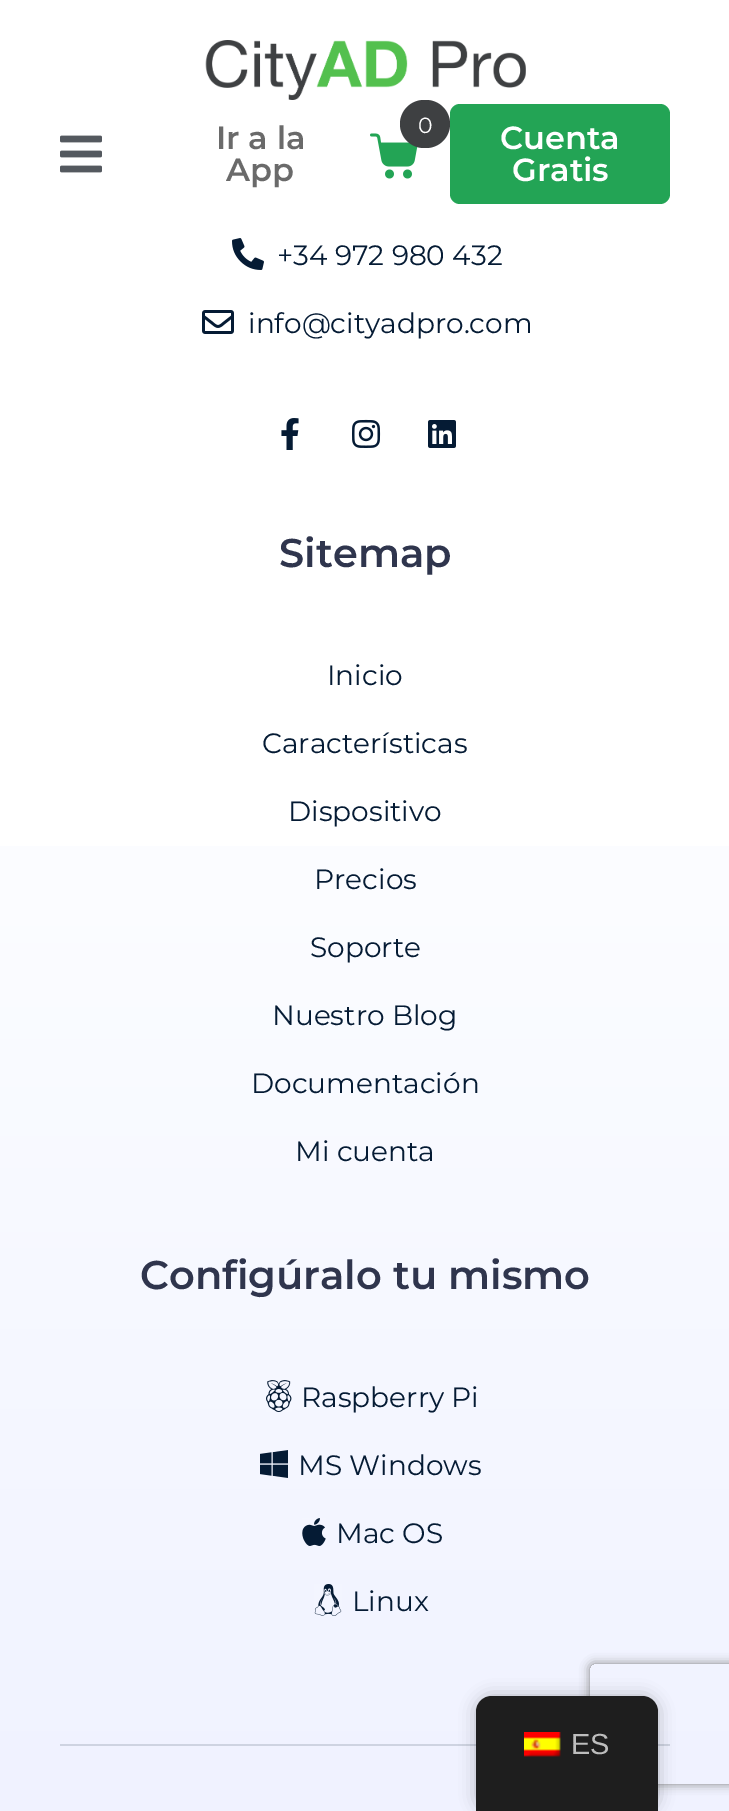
%!PS-Adobe-3.0
%%BoundingBox: 0 0 729 1811
%%LanguageLevel: 3
%%Pages: 1
%%EndComments
%%BeginProlog
/setalpha { dup .setfillconstantalpha .setstrokeconstantalpha } def
/rrect { 5 dict begin { /r /h /w /y /x } { exch def } forall
  x r add y moveto x w add y 2 copy h add r arct x w add y h add x 1 index r arct
  x y h add x y r arct x y 2 copy exch w add exch r arct closepath end } def
/softshadow { 12 dict begin { /a /b /q /h /w /y /x } { exch def } forall gsave /was 0 def
  9 -2 -9 { dup b mul 4 div /e exch def 1 sub .425 mul 2.718 exch exp 1 add a .99 .min exch div /now exch def
    1 1 now sub 1 was sub div sub setalpha /was now def
    w h .min e 2 mul add 0 gt { x e sub y e sub w e 2 mul add h e 2 mul add
      q e add b .6 mul add w h .min 2 div e add .min 0 .max rrect fill } if } for grestore end } def
/drawimage { 5 dict begin { /h /w /y /x /name } { exch def } forall
  gsave x y translate w h scale
  w h 8 [w 0 0 h 0 0] name (r) file false 3 colorimage grestore end } def
%%EndProlog
%%BeginSetup
<< /PageSize [729 1811] /PageUsesTransparency true >> setpagedevice
%%EndSetup
%%Page: 1 1
0 .pushpdf14devicefilter
0 1811 translate 1 -1 scale
4 setmiterlimit
1 setgray
0 0 729 1811 rectfill
(images/1.raw) 205 40 321 60 drawimage
(images/2.raw) 60 135 42 38 drawimage
(images/3.raw) 370 133 48 46 drawimage
0.243 0.251 0.259 setrgbcolor
400 100 50 48 24 rrect fill
0.137 0.643 0.333 setrgbcolor
450 104 220 100 10 rrect fill
gsave newpath 0 846 moveto 729 846 lineto 729 1811 lineto 0 1811 lineto closepath clip newpath
<< /ShadingType 2 /ColorSpace /DeviceRGB /Coords [365 -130 365 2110] /Extend [true true] /Function << /FunctionType 3 /Domain [0 1] /Functions [<< /FunctionType 2 /Domain [0 1] /C0 [1 1 1] /C1 [1 1 1] /N 1 >> << /FunctionType 2 /Domain [0 1] /C0 [1 1 1] /C1 [0.925 0.937 1] /N 1 >>] /Bounds [0.35] /Encode [0 1 0 1] >> >> shfill grestore
(images/4.raw) 232 238 32 32 drawimage
(images/5.raw) 202 310 32 24 drawimage
(images/6.raw) 281 418 18 32 drawimage
(images/7.raw) 352 419 29 29 drawimage
(images/8.raw) 428 420 28 28 drawimage
(images/9.raw) 266 1380 26 32 drawimage
(images/10.raw) 260 1450 28 28 drawimage
(images/11.raw) 302 1518 24 28 drawimage
(images/12.raw) 314 1584 28 32 drawimage
0.808 0.827 0.882 setrgbcolor
60 1744 610 2 rectfill
gsave
newpath 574 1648 moveto 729 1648 lineto 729 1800 lineto 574 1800 lineto closepath 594 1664 moveto 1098 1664 lineto 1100 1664 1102 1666 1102 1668 curveto 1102 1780 lineto 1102 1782 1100 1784 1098 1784 curveto 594 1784 lineto 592 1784 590 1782 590 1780 curveto 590 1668 lineto 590 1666 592 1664 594 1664 curveto closepath eoclip newpath
0.502 setgray
590 1664 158 120 4 5 1 softshadow
grestore
0 setgray
476 1696 182 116 16 8 0.25 softshadow
0.118 setgray
newpath 492 1696 moveto 642 1696 lineto 651 1696 658 1703 658 1712 curveto 658 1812 lineto 476 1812 lineto 476 1712 lineto 476 1703 483 1696 492 1696 curveto closepath fill
(images/13.raw) 524 1732 37 25 drawimage
/Montserrat-SemiBold [32 0 0 -32 0 0] selectfont
0.416 setgray
216 149 moveto (Ir a la) show
226 181 moveto (App) show
/Montserrat-Regular [22 0 0 -22 0 0] selectfont
1 setgray
418 133 moveto (0) show
/Montserrat-SemiBold [32 0 0 -32 0 0] selectfont
500 149 moveto (Cuenta) show
512 181 moveto (Gratis) show
/Montserrat-Regular [28 0 0 -28 0 0] selectfont
0.02 0.106 0.204 setrgbcolor
277 265 moveto (+34 972 980 432) show
248 333 moveto (info@cityadpro.com) show
/Montserrat-SemiBold [40 0 0 -40 0 0] selectfont
0.184 0.208 0.302 setrgbcolor
279 567 moveto (Sitemap) show
/Montserrat-Regular [28 0 0 -28 0 0] selectfont
0.02 0.106 0.204 setrgbcolor
327 685 moveto (Inicio) show
262 753 moveto (Características) show
288 821 moveto (Dispositivo) show
314 889 moveto (Precios) show
310 957 moveto (Soporte) show
272 1025 moveto (Nuestro Blog) show
251 1093 moveto (Documentación) show
295 1161 moveto (Mi cuenta) show
/Montserrat-SemiBold [40 0 0 -40 0 0] selectfont
0.184 0.208 0.302 setrgbcolor
140 1289 moveto (Configúralo tu mismo) show
/Montserrat-Regular [28 0 0 -28 0 0] selectfont
0.02 0.106 0.204 setrgbcolor
301 1407 moveto (Raspberry Pi) show
298 1475 moveto (MS Windows) show
336 1543 moveto (Mac OS) show
352 1611 moveto (Linux) show
/LiberationSans-Regular [29 0 0 -29 0 0] selectfont
0.741 setgray
571 1754 moveto (ES) show
.poppdf14devicefilter showpage
%%EOF
